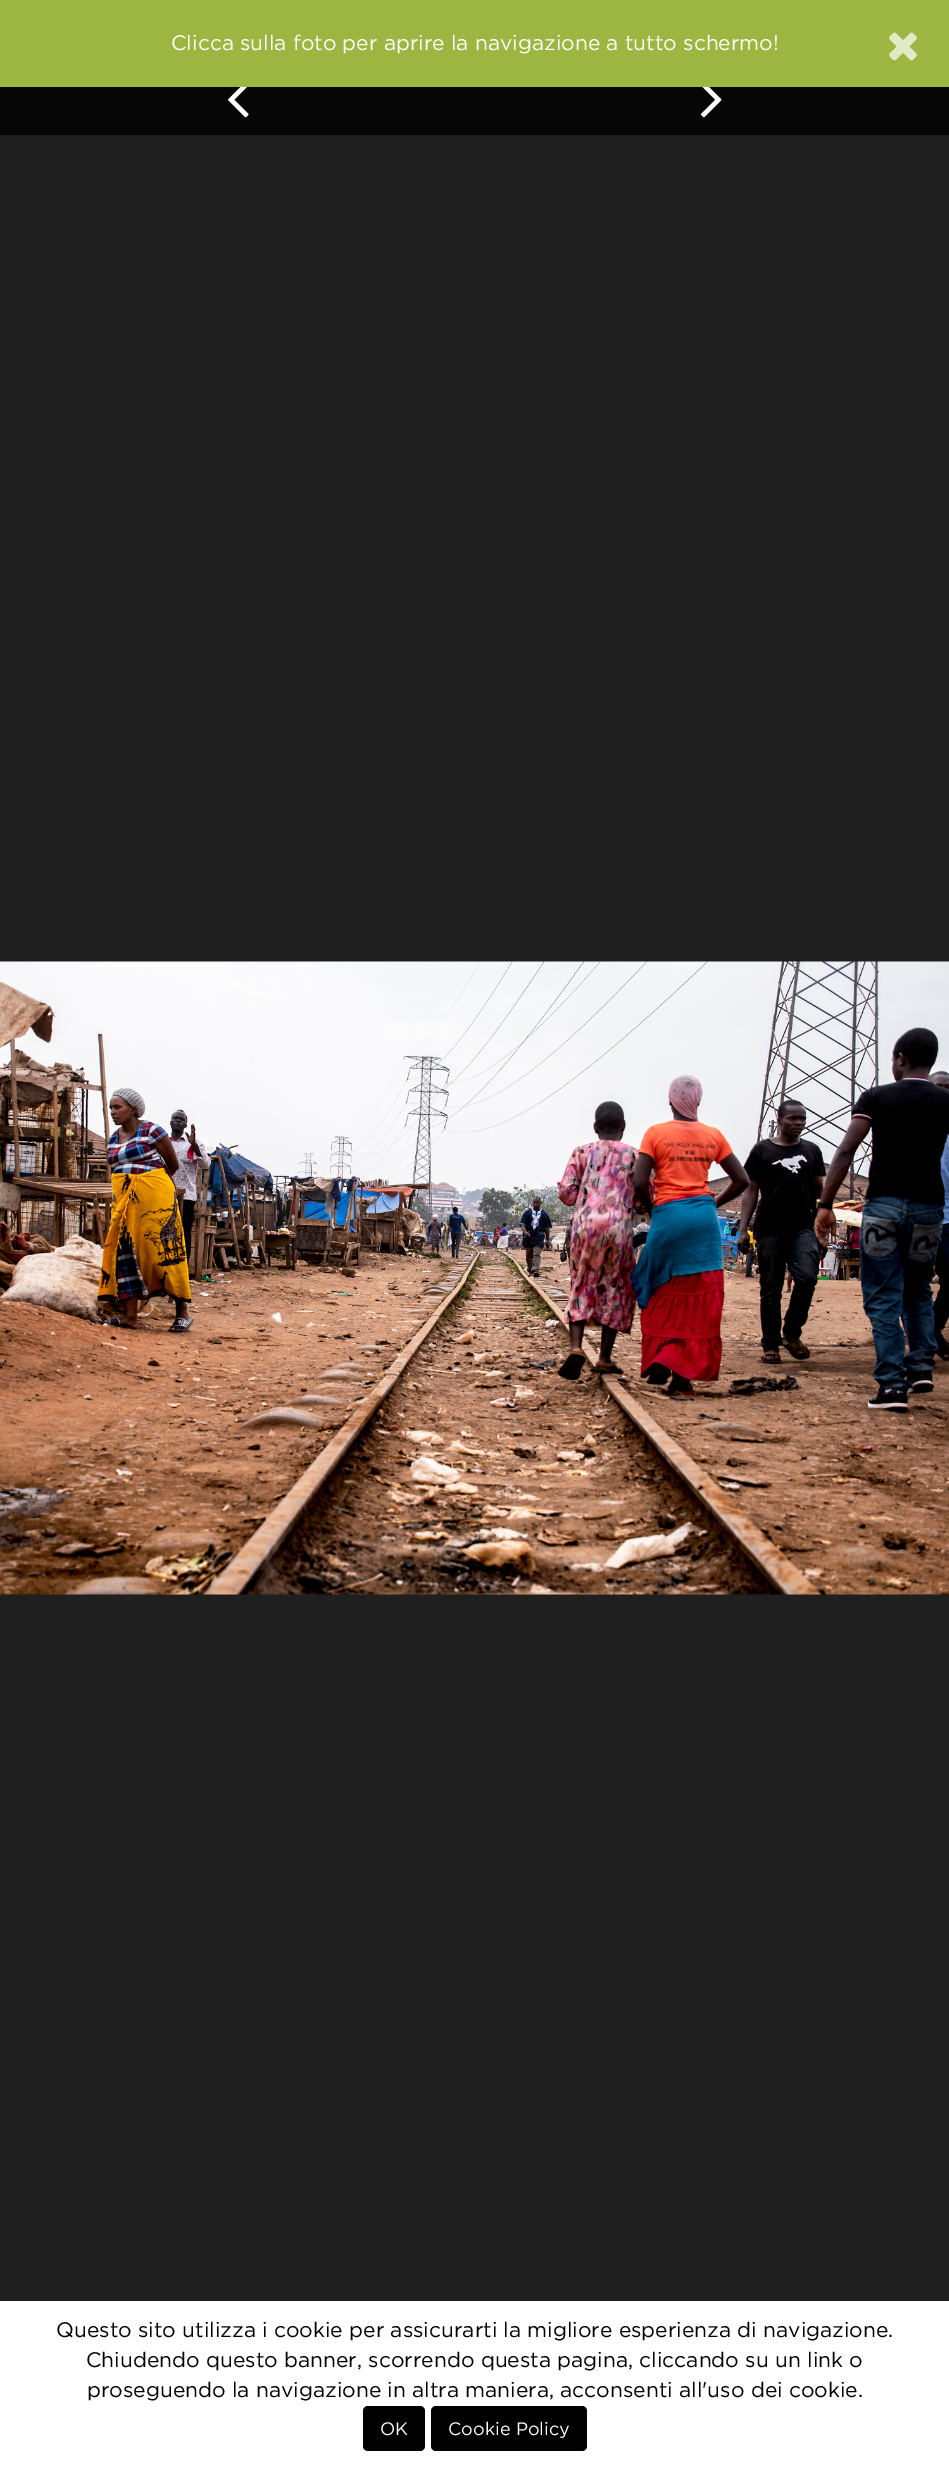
%!PS-Adobe-3.0
%%BoundingBox: 0 0 949 2466
%%LanguageLevel: 3
%%Pages: 1
%%EndComments
%%BeginProlog
/rrect { 5 dict begin { /r /h /w /y /x } { exch def } forall
  x r add y moveto x w add y 2 copy h add r arct x w add y h add x 1 index r arct
  x y h add x y r arct x y 2 copy exch w add exch r arct closepath end } def
/drawimage { 5 dict begin { /h /w /y /x /name } { exch def } forall
  gsave x y translate w h scale
  w h 8 [w 0 0 h 0 0] name (r) file false 3 colorimage grestore end } def
%%EndProlog
%%BeginSetup
<< /PageSize [949 2466] >> setpagedevice
%%EndSetup
%%Page: 1 1
0 2466 translate 1 -1 scale
4 setmiterlimit
0.122 setgray
0 0 949 2466 rectfill
0.612 0.714 0.255 setrgbcolor
0 0 949 87 rectfill
(images/1.raw) 889 32 28 29 drawimage
0.024 setgray
0 87 949 48 rectfill
(images/2.raw) 228 87 21 31 drawimage
(images/3.raw) 701 87 21 31 drawimage
(images/4.raw) 0 961 949 634 drawimage
1 setgray
0 2301 949 165 rectfill
0 setgray
363 2406 62 45 5 rrect fill
431 2406 156 45 5 rrect fill
/Gotham-Regular [21 0 0 -21 0 0] selectfont
1 setgray
171 50 moveto (Clicca sulla foto per aprire la navigazione a tutto schermo!) show
0 setgray
56 2337 moveto (Questo sito utilizza i cookie per assicurarti la migliore esperienza di navigazione.) show
86 2367 moveto (Chiudendo questo banner, scorrendo questa pagina, cliccando su un link o) show
87 2397 moveto (proseguendo la navigazione in altra maniera, acconsenti all'uso dei cookie.) show
/Gotham-Regular [18 0 0 -18 0 0] selectfont
1 setgray
380 2435 moveto (OK) show
448 2435 moveto (Cookie Policy) show
showpage
%%EOF
